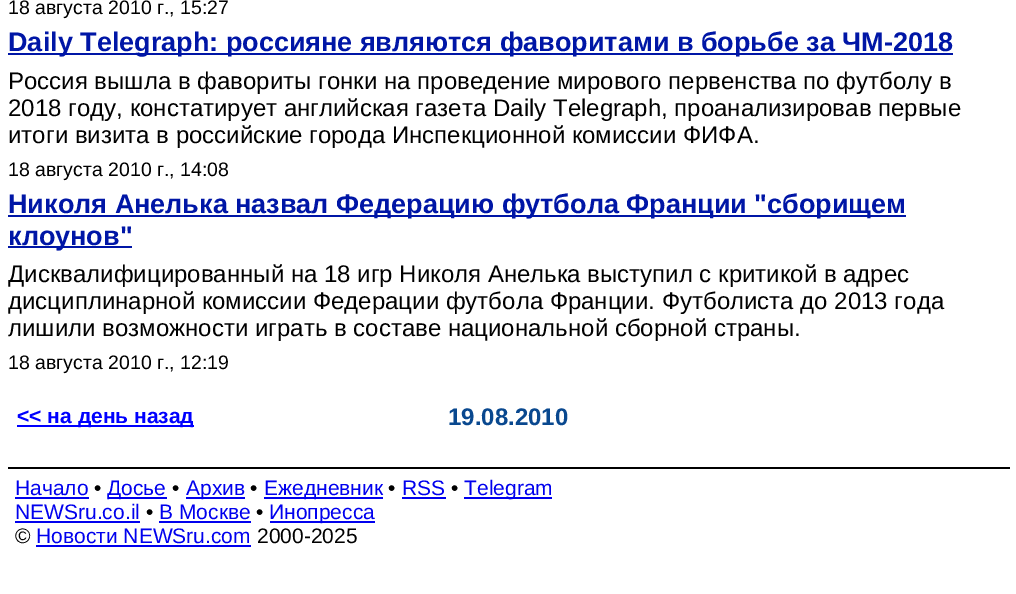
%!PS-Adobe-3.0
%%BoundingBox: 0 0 1016 594
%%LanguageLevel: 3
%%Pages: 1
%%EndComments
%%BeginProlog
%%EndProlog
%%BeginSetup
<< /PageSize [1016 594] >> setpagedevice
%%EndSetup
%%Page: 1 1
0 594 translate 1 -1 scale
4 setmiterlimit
1 setgray
0 0 1016 594 rectfill
0 0.086 0.651 setrgbcolor
8 53 945 2 rectfill
8 215 898 2 rectfill
8 246 124 2 rectfill
0 0 1 setrgbcolor
17 425 177 2 rectfill
0 setgray
8 467 1002 2 rectfill
0 0 0.933 setrgbcolor
15 497 74 2 rectfill
108 497 59 2 rectfill
186 497 59 2 rectfill
264 497 119 2 rectfill
402 497 44 2 rectfill
464 497 88 2 rectfill
15 521 125 2 rectfill
159 521 92 2 rectfill
270 521 105 2 rectfill
36 545 215 2 rectfill
/LiberationSans-Regular [19.5 0 0 -19.5 0 0] selectfont
0 setgray
8 14 moveto (18 августа 2010 г., 15:27) show
/LiberationSans-Bold [27 0 0 -27 0 0] selectfont
0 0.086 0.651 setrgbcolor
8 51 moveto (Daily Telegraph: россияне являются фаворитами в борьбе за ЧМ-2018) show
/LiberationSans-Regular [24 0 0 -24 0 0] selectfont
0 setgray
8 89 moveto (Россия вышла в фавориты гонки на проведение мирового первенства по футболу в) show
8 116 moveto (2018 году, констатирует английская газета Daily Telegraph, проанализировав первые) show
8 143 moveto (итоги визита в российские города Инспекционной комиссии ФИФА.) show
/LiberationSans-Regular [19.5 0 0 -19.5 0 0] selectfont
8 176 moveto (18 августа 2010 г., 14:08) show
/LiberationSans-Bold [27 0 0 -27 0 0] selectfont
0 0.086 0.651 setrgbcolor
8 213 moveto (Николя Анелька назвал Федерацию футбола Франции "сборищем) show
8 245 moveto (клоунов") show
/LiberationSans-Regular [24 0 0 -24 0 0] selectfont
0 setgray
8 282 moveto (Дисквалифицированный на 18 игр Николя Анелька выступил с критикой в адрес) show
8 309 moveto (дисциплинарной комиссии Федерации футбола Франции. Футболиста до 2013 года) show
8 336 moveto (лишили возможности играть в составе национальной сборной страны.) show
/LiberationSans-Regular [19.5 0 0 -19.5 0 0] selectfont
8 369 moveto (18 августа 2010 г., 12:19) show
/LiberationSans-Bold [21 0 0 -21 0 0] selectfont
0 0 1 setrgbcolor
17 423 moveto (<< на день назад) show
/LiberationSans-Bold [24 0 0 -24 0 0] selectfont
0.035 0.282 0.561 setrgbcolor
448 425 moveto (19.08.2010) show
/LiberationSans-Regular [21 0 0 -21 0 0] selectfont
0 0 0.933 setrgbcolor
15 495 moveto (Начало) show
0 setgray
94 495 moveto (•) show
0 0 0.933 setrgbcolor
107 495 moveto (Досье) show
0 setgray
172 495 moveto (•) show
0 0 0.933 setrgbcolor
186 495 moveto (Архив) show
0 setgray
250 495 moveto (•) show
0 0 0.933 setrgbcolor
264 495 moveto (Ежедневник) show
0 setgray
388 495 moveto (•) show
0 0 0.933 setrgbcolor
402 495 moveto (RSS) show
0 setgray
451 495 moveto (•) show
0 0 0.933 setrgbcolor
464 495 moveto (Telegram) show
15 519 moveto (NEWSru.co.il) show
0 setgray
146 519 moveto (•) show
0 0 0.933 setrgbcolor
159 519 moveto (В Москве) show
0 setgray
256 519 moveto (•) show
0 0 0.933 setrgbcolor
269 519 moveto (Инопресса) show
0 setgray
15 543 moveto (©) show
0 0 0.933 setrgbcolor
36 543 moveto (Новости NEWSru.com) show
0 setgray
257 543 moveto (2000-2025) show
showpage
%%EOF
